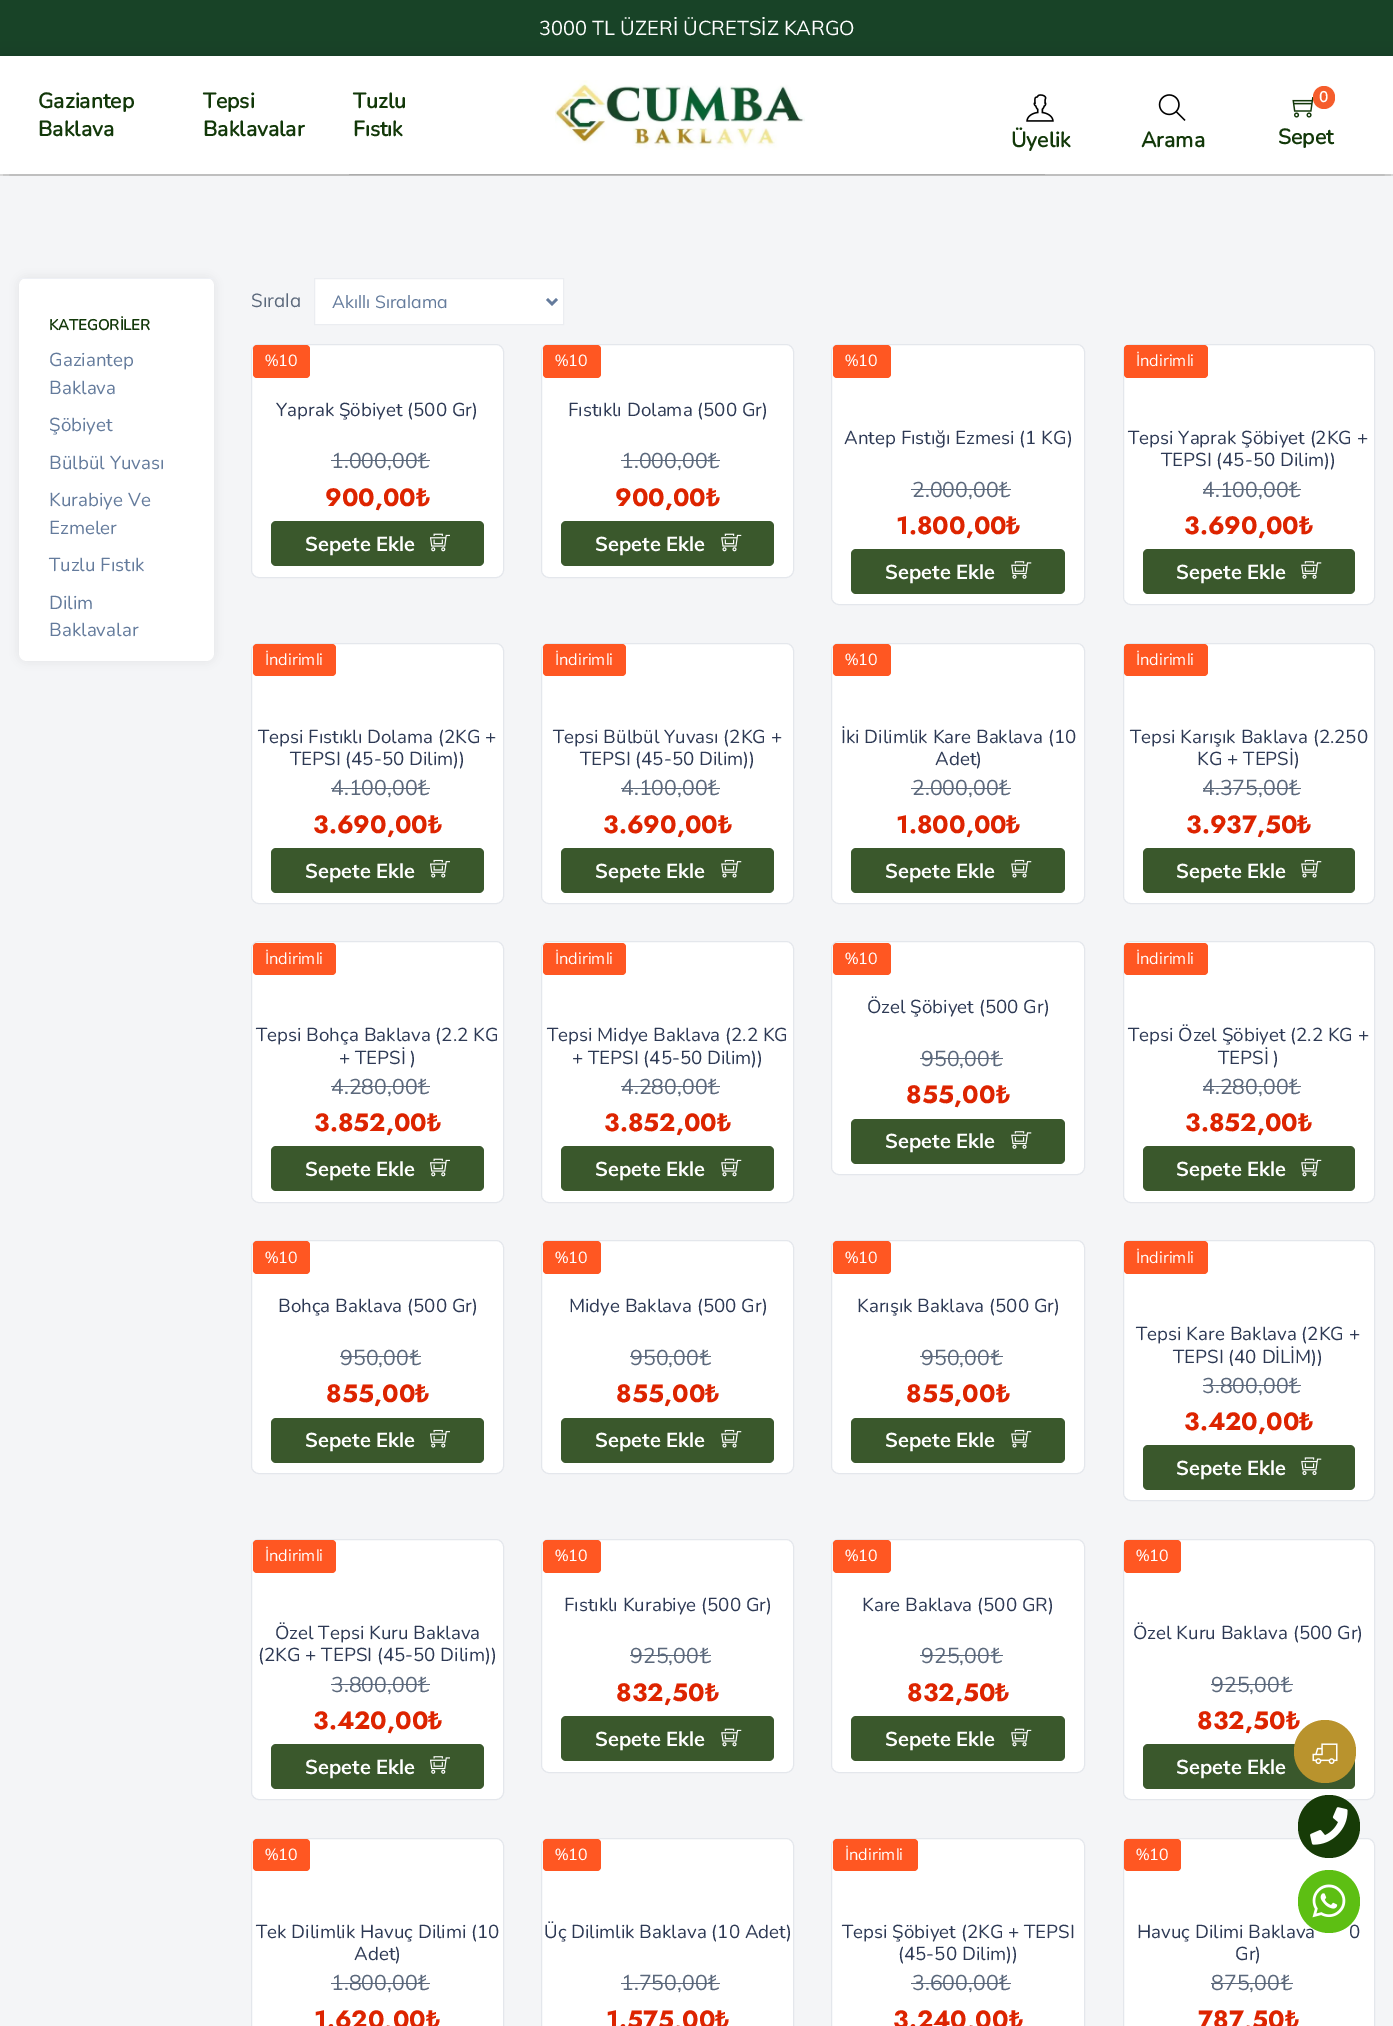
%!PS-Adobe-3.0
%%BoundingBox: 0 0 1393 2026
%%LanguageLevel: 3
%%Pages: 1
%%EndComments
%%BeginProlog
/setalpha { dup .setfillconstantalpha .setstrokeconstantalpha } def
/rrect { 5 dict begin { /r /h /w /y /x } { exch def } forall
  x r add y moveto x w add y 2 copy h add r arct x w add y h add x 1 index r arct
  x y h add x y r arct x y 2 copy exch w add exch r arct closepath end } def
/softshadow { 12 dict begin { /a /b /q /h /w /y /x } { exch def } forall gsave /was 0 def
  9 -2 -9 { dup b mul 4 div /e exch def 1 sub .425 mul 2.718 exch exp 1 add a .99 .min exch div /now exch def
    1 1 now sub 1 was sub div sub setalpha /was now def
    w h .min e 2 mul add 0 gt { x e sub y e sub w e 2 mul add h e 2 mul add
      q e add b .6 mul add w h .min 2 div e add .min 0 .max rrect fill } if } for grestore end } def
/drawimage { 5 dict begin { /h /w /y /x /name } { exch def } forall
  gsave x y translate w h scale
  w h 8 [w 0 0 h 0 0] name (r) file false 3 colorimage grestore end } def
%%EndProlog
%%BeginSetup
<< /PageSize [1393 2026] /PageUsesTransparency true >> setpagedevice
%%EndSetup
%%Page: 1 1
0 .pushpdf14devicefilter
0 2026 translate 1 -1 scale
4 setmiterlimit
1 setgray
0 0 1393 2026 rectfill
0.094 0.263 0.153 setrgbcolor
0 0 1393 56 rectfill
0.902 setgray
349 174 696 1 rectfill
0 setgray
0 69 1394 117 0 12.5 0.3 softshadow
1 setgray
0 56 1393 118 rectfill
(images/1.raw) 555 80 250 70 drawimage
(images/2.raw) 1026 94 28 28 drawimage
(images/3.raw) 1158 94 28 27 drawimage
(images/4.raw) 1292 97 22 21 drawimage
0.961 0.365 0.173 setrgbcolor
1313 86 22 23 11 rrect fill
0.957 0.961 0.969 setrgbcolor
0 176 1393 1850 rectfill
0.125 setgray
19 278 195 383 8 4.5 0.08 softshadow
1 setgray
19 278 195 383 8 rrect fill
0.933 0.941 0.961 setrgbcolor
19 278 195 1 rectfill
1 setgray
newpath 314.5 278.5 moveto 563.5 278.5 lineto 563.5 324.5 lineto 314.5 324.5 lineto closepath gsave fill grestore
0.922 0.929 0.945 setrgbcolor
stroke
0.392 0.482 0.612 setrgbcolor
2.5 setlinewidth
newpath 547 299 moveto 552 304 lineto 557 299 lineto stroke
1 setgray
251.5 344.5 252 233 7.5 rrect gsave fill grestore
0.894 0.906 0.925 setrgbcolor
1 setlinewidth
stroke
1 0.341 0.133 setrgbcolor
253 345 57 33 4 rrect fill
0.357 0.408 0.482 setrgbcolor
331 460 99 1 rectfill
0.227 0.345 0.173 setrgbcolor
271 521 213 45 5 rrect fill
(images/5.raw) 430 533 20 19 drawimage
1 setgray
541.5 344.5 252 233 7.5 rrect gsave fill grestore
0.894 0.906 0.925 setrgbcolor
stroke
1 0.341 0.133 setrgbcolor
543 345 58 33 4 rrect fill
0.357 0.408 0.482 setrgbcolor
621 460 99 1 rectfill
0.227 0.345 0.173 setrgbcolor
561 521 213 45 5 rrect fill
(images/6.raw) 721 533 21 19 drawimage
1 setgray
831.5 344.5 253 260 7.5 rrect gsave fill grestore
0.894 0.906 0.925 setrgbcolor
stroke
1 0.341 0.133 setrgbcolor
833 345 58 33 4 rrect fill
0.357 0.408 0.482 setrgbcolor
911 489 100 1 rectfill
0.227 0.345 0.173 setrgbcolor
851 549 214 45 5 rrect fill
(images/7.raw) 1011 561 21 18 drawimage
1 setgray
1123.5 344.5 251 260 7.5 rrect gsave fill grestore
0.894 0.906 0.925 setrgbcolor
stroke
1 0.341 0.133 setrgbcolor
1124 345 84 33 4 rrect fill
0.357 0.408 0.482 setrgbcolor
1203 489 98 1 rectfill
0.227 0.345 0.173 setrgbcolor
1143 549 212 45 5 rrect fill
(images/7.raw) 1301 561 21 18 drawimage
1 setgray
251.5 643.5 252 260 7.5 rrect gsave fill grestore
0.894 0.906 0.925 setrgbcolor
stroke
1 0.341 0.133 setrgbcolor
253 644 83 32 4 rrect fill
0.357 0.408 0.482 setrgbcolor
331 788 99 1 rectfill
0.227 0.345 0.173 setrgbcolor
271 848 213 45 5 rrect fill
(images/8.raw) 430 859 20 19 drawimage
1 setgray
541.5 643.5 252 260 7.5 rrect gsave fill grestore
0.894 0.906 0.925 setrgbcolor
stroke
1 0.341 0.133 setrgbcolor
543 644 83 32 4 rrect fill
0.357 0.408 0.482 setrgbcolor
621 788 99 1 rectfill
0.227 0.345 0.173 setrgbcolor
561 848 213 45 5 rrect fill
(images/9.raw) 721 859 21 19 drawimage
1 setgray
831.5 643.5 253 260 7.5 rrect gsave fill grestore
0.894 0.906 0.925 setrgbcolor
stroke
1 0.341 0.133 setrgbcolor
833 644 58 32 4 rrect fill
0.357 0.408 0.482 setrgbcolor
911 788 100 1 rectfill
0.227 0.345 0.173 setrgbcolor
851 848 214 45 5 rrect fill
(images/9.raw) 1011 859 21 19 drawimage
1 setgray
1123.5 643.5 251 260 7.5 rrect gsave fill grestore
0.894 0.906 0.925 setrgbcolor
stroke
1 0.341 0.133 setrgbcolor
1124 644 84 32 4 rrect fill
0.357 0.408 0.482 setrgbcolor
1203 788 98 1 rectfill
0.227 0.345 0.173 setrgbcolor
1143 848 212 45 5 rrect fill
(images/9.raw) 1301 859 21 19 drawimage
1 setgray
251.5 941.5 252 261 7.5 rrect gsave fill grestore
0.894 0.906 0.925 setrgbcolor
stroke
1 0.341 0.133 setrgbcolor
253 943 83 32 4 rrect fill
0.357 0.408 0.482 setrgbcolor
331 1086 99 1 rectfill
0.227 0.345 0.173 setrgbcolor
271 1146 213 45 5 rrect fill
(images/5.raw) 430 1158 20 19 drawimage
1 setgray
541.5 941.5 252 261 7.5 rrect gsave fill grestore
0.894 0.906 0.925 setrgbcolor
stroke
1 0.341 0.133 setrgbcolor
543 943 83 32 4 rrect fill
0.357 0.408 0.482 setrgbcolor
621 1086 99 1 rectfill
0.227 0.345 0.173 setrgbcolor
561 1146 213 45 5 rrect fill
(images/6.raw) 721 1158 21 19 drawimage
1 setgray
831.5 941.5 253 233 7.5 rrect gsave fill grestore
0.894 0.906 0.925 setrgbcolor
stroke
1 0.341 0.133 setrgbcolor
833 943 58 32 4 rrect fill
0.357 0.408 0.482 setrgbcolor
920 1058 83 1 rectfill
0.227 0.345 0.173 setrgbcolor
851 1119 214 45 5 rrect fill
(images/7.raw) 1011 1131 21 18 drawimage
1 setgray
1123.5 941.5 251 261 7.5 rrect gsave fill grestore
0.894 0.906 0.925 setrgbcolor
stroke
1 0.341 0.133 setrgbcolor
1124 943 84 32 4 rrect fill
0.357 0.408 0.482 setrgbcolor
1203 1086 98 1 rectfill
0.227 0.345 0.173 setrgbcolor
1143 1146 212 45 5 rrect fill
(images/6.raw) 1301 1158 21 19 drawimage
1 setgray
251.5 1240.5 252 233 7.5 rrect gsave fill grestore
0.894 0.906 0.925 setrgbcolor
stroke
1 0.341 0.133 setrgbcolor
253 1241 57 33 4 rrect fill
0.357 0.408 0.482 setrgbcolor
340 1356 81 1 rectfill
0.227 0.345 0.173 setrgbcolor
271 1418 213 45 5 rrect fill
(images/8.raw) 430 1429 20 19 drawimage
1 setgray
541.5 1240.5 252 233 7.5 rrect gsave fill grestore
0.894 0.906 0.925 setrgbcolor
stroke
1 0.341 0.133 setrgbcolor
543 1241 58 33 4 rrect fill
0.357 0.408 0.482 setrgbcolor
630 1356 81 1 rectfill
0.227 0.345 0.173 setrgbcolor
561 1418 213 45 5 rrect fill
(images/9.raw) 721 1429 21 19 drawimage
1 setgray
831.5 1240.5 253 233 7.5 rrect gsave fill grestore
0.894 0.906 0.925 setrgbcolor
stroke
1 0.341 0.133 setrgbcolor
833 1241 58 33 4 rrect fill
0.357 0.408 0.482 setrgbcolor
920 1356 83 1 rectfill
0.227 0.345 0.173 setrgbcolor
851 1418 214 45 5 rrect fill
(images/9.raw) 1011 1429 21 19 drawimage
1 setgray
1123.5 1240.5 251 260 7.5 rrect gsave fill grestore
0.894 0.906 0.925 setrgbcolor
stroke
1 0.341 0.133 setrgbcolor
1124 1241 84 33 4 rrect fill
0.357 0.408 0.482 setrgbcolor
1203 1385 98 1 rectfill
0.227 0.345 0.173 setrgbcolor
1143 1445 212 45 5 rrect fill
(images/10.raw) 1301 1457 21 19 drawimage
1 setgray
251.5 1539.5 252 260 7.5 rrect gsave fill grestore
0.894 0.906 0.925 setrgbcolor
stroke
1 0.341 0.133 setrgbcolor
253 1540 83 33 4 rrect fill
0.357 0.408 0.482 setrgbcolor
331 1684 99 1 rectfill
0.227 0.345 0.173 setrgbcolor
271 1744 213 45 5 rrect fill
(images/11.raw) 430 1756 20 18 drawimage
1 setgray
541.5 1539.5 252 233 7.5 rrect gsave fill grestore
0.894 0.906 0.925 setrgbcolor
stroke
1 0.341 0.133 setrgbcolor
543 1540 58 33 4 rrect fill
0.357 0.408 0.482 setrgbcolor
630 1655 81 1 rectfill
0.227 0.345 0.173 setrgbcolor
561 1716 213 45 5 rrect fill
(images/6.raw) 721 1728 21 19 drawimage
1 setgray
831.5 1539.5 253 233 7.5 rrect gsave fill grestore
0.894 0.906 0.925 setrgbcolor
stroke
1 0.341 0.133 setrgbcolor
833 1540 58 33 4 rrect fill
0.357 0.408 0.482 setrgbcolor
920 1655 83 1 rectfill
0.227 0.345 0.173 setrgbcolor
851 1716 214 45 5 rrect fill
(images/6.raw) 1011 1728 21 19 drawimage
1 setgray
1123.5 1539.5 251 260 7.5 rrect gsave fill grestore
0.894 0.906 0.925 setrgbcolor
stroke
1 0.341 0.133 setrgbcolor
1124 1540 57 33 4 rrect fill
0.357 0.408 0.482 setrgbcolor
1211 1684 82 1 rectfill
0.227 0.345 0.173 setrgbcolor
1143 1744 212 45 5 rrect fill
(images/12.raw) 1302 1772 2 2 drawimage
1 setgray
251.5 1838.5 252 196 7.5 rrect gsave fill grestore
0.894 0.906 0.925 setrgbcolor
stroke
1 0.341 0.133 setrgbcolor
253 1839 57 32 4 rrect fill
0.357 0.408 0.482 setrgbcolor
331 1983 99 1 rectfill
1 setgray
541.5 1838.5 252 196 7.5 rrect gsave fill grestore
0.894 0.906 0.925 setrgbcolor
stroke
1 0.341 0.133 setrgbcolor
543 1839 58 32 4 rrect fill
0.357 0.408 0.482 setrgbcolor
621 1983 99 1 rectfill
1 setgray
831.5 1838.5 253 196 7.5 rrect gsave fill grestore
0.894 0.906 0.925 setrgbcolor
stroke
1 0.341 0.133 setrgbcolor
833 1839 85 32 4 rrect fill
0.357 0.408 0.482 setrgbcolor
911 1983 100 1 rectfill
1 setgray
1123.5 1838.5 251 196 7.5 rrect gsave fill grestore
0.894 0.906 0.925 setrgbcolor
stroke
1 0.341 0.133 setrgbcolor
1124 1839 57 32 4 rrect fill
0.357 0.408 0.482 setrgbcolor
1211 1983 82 1 rectfill
0.09 0.231 0.027 setrgbcolor
1298 1795 62 63 31 rrect fill
(images/14.raw) 1310 1807 38 38 drawimage
/Muli-Regular [20 0 0 -20 0 0] selectfont
1 setgray
539 35 moveto (3000 TL ÜZERİ ÜCRETSİZ KARGO) show
/Nunito-Bold [21.25 0 0 -21.25 0 0] selectfont
0.071 0.22 0.035 setrgbcolor
38 108 moveto (Gaziantep) show
38 136 moveto (Baklava) show
203 108 moveto (Tepsi) show
203 136 moveto (Baklavalar) show
353 108 moveto (Tuzlu) show
353 136 moveto (Fıstık) show
1011 147 moveto (Üyelik) show
1141 147 moveto (Arama) show
/Nunito-Bold [15 0 0 -15 0 0] selectfont
1 setgray
1319 102 moveto (0) show
/Nunito-Bold [21.25 0 0 -21.25 0 0] selectfont
0.071 0.22 0.035 setrgbcolor
1278 144 moveto (Sepet) show
/Nunito-Bold [15 0 0 -15 0 0] selectfont
49 330 moveto (KATEGORİLER) show
/Nunito-ExtraLight [18.75 0 0 -18.75 0 0] selectfont
0.392 0.482 0.612 setrgbcolor
49 366 moveto (Gaziantep) show
49 394 moveto (Baklava) show
49 431 moveto (Şöbiyet) show
49 469 moveto (Bülbül Yuvası) show
49 506 moveto (Kurabiye Ve) show
49 534 moveto (Ezmeler) show
49 571 moveto (Tuzlu Fıstık) show
49 609 moveto (Dilim) show
49 636 moveto (Baklavalar) show
/Muli-Regular [18.75 0 0 -18.75 0 0] selectfont
0.357 0.408 0.482 setrgbcolor
251 307 moveto (Sırala) show
/Muli-Regular [17.5 0 0 -17.5 0 0] selectfont
0.392 0.482 0.612 setrgbcolor
332 308 moveto (Akıllı Sıralama) show
/Muli-Regular [16 0 0 -16 0 0] selectfont
1 setgray
265 366 moveto (%10) show
/Nunito-ExtraLight [18.75 0 0 -18.75 0 0] selectfont
0.176 0.224 0.329 setrgbcolor
276 416 moveto (Yaprak Şöbiyet \(500 Gr\)) show
/Muli-Regular [21.25 0 0 -21.25 0 0] selectfont
0.357 0.408 0.482 setrgbcolor
331 468 moveto (1.000,00₺) show
/Jost-Bold [25 0 0 -25 0 0] selectfont
0.867 0.141 0 setrgbcolor
325 506 moveto (900,00) show
/NotoSans-Bold [25 0 0 -25 0 0] selectfont
416 506 moveto (₺) show
/Muli-Bold [20 0 0 -20 0 0] selectfont
1 setgray
305 551 moveto (Sepete Ekle) show
/Muli-Regular [16 0 0 -16 0 0] selectfont
555 366 moveto (%10) show
/Nunito-ExtraLight [18.75 0 0 -18.75 0 0] selectfont
0.176 0.224 0.329 setrgbcolor
568 416 moveto (Fıstıklı Dolama \(500 Gr\)) show
/Muli-Regular [21.25 0 0 -21.25 0 0] selectfont
0.357 0.408 0.482 setrgbcolor
621 468 moveto (1.000,00₺) show
/Jost-Bold [25 0 0 -25 0 0] selectfont
0.867 0.141 0 setrgbcolor
615 506 moveto (900,00) show
/NotoSans-Bold [25 0 0 -25 0 0] selectfont
706 506 moveto (₺) show
/Muli-Bold [20 0 0 -20 0 0] selectfont
1 setgray
595 551 moveto (Sepete Ekle) show
/Muli-Regular [16 0 0 -16 0 0] selectfont
845 366 moveto (%10) show
/Nunito-ExtraLight [18.75 0 0 -18.75 0 0] selectfont
0.176 0.224 0.329 setrgbcolor
844 444 moveto (Antep Fıstığı Ezmesi \(1 KG\)) show
/Muli-Regular [21.25 0 0 -21.25 0 0] selectfont
0.357 0.408 0.482 setrgbcolor
912 497 moveto (2.000,00₺) show
/Jost-Bold [25 0 0 -25 0 0] selectfont
0.867 0.141 0 setrgbcolor
896 534 moveto (1.800,00) show
/NotoSans-Bold [25 0 0 -25 0 0] selectfont
1006 534 moveto (₺) show
/Muli-Bold [20 0 0 -20 0 0] selectfont
1 setgray
885 579 moveto (Sepete Ekle) show
/Muli-Regular [16 0 0 -16 0 0] selectfont
1136 366 moveto (İndirimli) show
/Nunito-ExtraLight [18.75 0 0 -18.75 0 0] selectfont
0.176 0.224 0.329 setrgbcolor
1128 444 moveto (Tepsi Yaprak Şöbiyet \(2KG +) show
1161 466 moveto (TEPSI \(45-50 Dilim\)\)) show
/Muli-Regular [21.25 0 0 -21.25 0 0] selectfont
0.357 0.408 0.482 setrgbcolor
1202 497 moveto (4.100,00₺) show
/Jost-Bold [25 0 0 -25 0 0] selectfont
0.867 0.141 0 setrgbcolor
1184 534 moveto (3.690,00) show
/NotoSans-Bold [25 0 0 -25 0 0] selectfont
1299 534 moveto (₺) show
/Muli-Bold [20 0 0 -20 0 0] selectfont
1 setgray
1176 579 moveto (Sepete Ekle) show
/Muli-Regular [16 0 0 -16 0 0] selectfont
265 665 moveto (İndirimli) show
/Nunito-ExtraLight [18.75 0 0 -18.75 0 0] selectfont
0.176 0.224 0.329 setrgbcolor
258 743 moveto (Tepsi Fıstıklı Dolama \(2KG +) show
290 765 moveto (TEPSI \(45-50 Dilim\)\)) show
/Muli-Regular [21.25 0 0 -21.25 0 0] selectfont
0.357 0.408 0.482 setrgbcolor
331 795 moveto (4.100,00₺) show
/Jost-Bold [25 0 0 -25 0 0] selectfont
0.867 0.141 0 setrgbcolor
313 833 moveto (3.690,00) show
/NotoSans-Bold [25 0 0 -25 0 0] selectfont
428 833 moveto (₺) show
/Muli-Bold [20 0 0 -20 0 0] selectfont
1 setgray
305 878 moveto (Sepete Ekle) show
/Muli-Regular [16 0 0 -16 0 0] selectfont
555 665 moveto (İndirimli) show
/Nunito-ExtraLight [18.75 0 0 -18.75 0 0] selectfont
0.176 0.224 0.329 setrgbcolor
553 743 moveto (Tepsi Bülbül Yuvası \(2KG +) show
580 765 moveto (TEPSI \(45-50 Dilim\)\)) show
/Muli-Regular [21.25 0 0 -21.25 0 0] selectfont
0.357 0.408 0.482 setrgbcolor
621 795 moveto (4.100,00₺) show
/Jost-Bold [25 0 0 -25 0 0] selectfont
0.867 0.141 0 setrgbcolor
603 833 moveto (3.690,00) show
/NotoSans-Bold [25 0 0 -25 0 0] selectfont
718 833 moveto (₺) show
/Muli-Bold [20 0 0 -20 0 0] selectfont
1 setgray
595 878 moveto (Sepete Ekle) show
/Muli-Regular [16 0 0 -16 0 0] selectfont
845 665 moveto (%10) show
/Nunito-ExtraLight [18.75 0 0 -18.75 0 0] selectfont
0.176 0.224 0.329 setrgbcolor
841 743 moveto (İki Dilimlik Kare Baklava \(10) show
935 765 moveto (Adet\)) show
/Muli-Regular [21.25 0 0 -21.25 0 0] selectfont
0.357 0.408 0.482 setrgbcolor
912 795 moveto (2.000,00₺) show
/Jost-Bold [25 0 0 -25 0 0] selectfont
0.867 0.141 0 setrgbcolor
896 833 moveto (1.800,00) show
/NotoSans-Bold [25 0 0 -25 0 0] selectfont
1006 833 moveto (₺) show
/Muli-Bold [20 0 0 -20 0 0] selectfont
1 setgray
885 878 moveto (Sepete Ekle) show
/Muli-Regular [16 0 0 -16 0 0] selectfont
1136 665 moveto (İndirimli) show
/Nunito-ExtraLight [18.75 0 0 -18.75 0 0] selectfont
0.176 0.224 0.329 setrgbcolor
1130 743 moveto (Tepsi Karışık Baklava \(2.250) show
1197 765 moveto (KG + TEPSİ\)) show
/Muli-Regular [21.25 0 0 -21.25 0 0] selectfont
0.357 0.408 0.482 setrgbcolor
1202 795 moveto (4.375,00₺) show
/Jost-Bold [25 0 0 -25 0 0] selectfont
0.867 0.141 0 setrgbcolor
1186 833 moveto (3.937,50) show
/NotoSans-Bold [25 0 0 -25 0 0] selectfont
1297 833 moveto (₺) show
/Muli-Bold [20 0 0 -20 0 0] selectfont
1 setgray
1176 878 moveto (Sepete Ekle) show
/Muli-Regular [16 0 0 -16 0 0] selectfont
265 964 moveto (İndirimli) show
/Nunito-ExtraLight [18.75 0 0 -18.75 0 0] selectfont
0.176 0.224 0.329 setrgbcolor
256 1041 moveto (Tepsi Bohça Baklava \(2.2 KG) show
339 1064 moveto (+ TEPSİ \)) show
/Muli-Regular [21.25 0 0 -21.25 0 0] selectfont
0.357 0.408 0.482 setrgbcolor
331 1094 moveto (4.280,00₺) show
/Jost-Bold [25 0 0 -25 0 0] selectfont
0.867 0.141 0 setrgbcolor
314 1131 moveto (3.852,00) show
/NotoSans-Bold [25 0 0 -25 0 0] selectfont
427 1131 moveto (₺) show
/Muli-Bold [20 0 0 -20 0 0] selectfont
1 setgray
305 1176 moveto (Sepete Ekle) show
/Muli-Regular [16 0 0 -16 0 0] selectfont
555 964 moveto (İndirimli) show
/Nunito-ExtraLight [18.75 0 0 -18.75 0 0] selectfont
0.176 0.224 0.329 setrgbcolor
547 1041 moveto (Tepsi Midye Baklava \(2.2 KG) show
572 1064 moveto (+ TEPSI \(45-50 Dilim\)\)) show
/Muli-Regular [21.25 0 0 -21.25 0 0] selectfont
0.357 0.408 0.482 setrgbcolor
621 1094 moveto (4.280,00₺) show
/Jost-Bold [25 0 0 -25 0 0] selectfont
0.867 0.141 0 setrgbcolor
604 1131 moveto (3.852,00) show
/NotoSans-Bold [25 0 0 -25 0 0] selectfont
717 1131 moveto (₺) show
/Muli-Bold [20 0 0 -20 0 0] selectfont
1 setgray
595 1176 moveto (Sepete Ekle) show
/Muli-Regular [16 0 0 -16 0 0] selectfont
845 964 moveto (%10) show
/Nunito-ExtraLight [18.75 0 0 -18.75 0 0] selectfont
0.176 0.224 0.329 setrgbcolor
867 1013 moveto (Özel Şöbiyet \(500 Gr\)) show
/Muli-Regular [21.25 0 0 -21.25 0 0] selectfont
0.357 0.408 0.482 setrgbcolor
921 1066 moveto (950,00₺) show
/Jost-Bold [25 0 0 -25 0 0] selectfont
0.867 0.141 0 setrgbcolor
906 1103 moveto (855,00) show
/NotoSans-Bold [25 0 0 -25 0 0] selectfont
996 1103 moveto (₺) show
/Muli-Bold [20 0 0 -20 0 0] selectfont
1 setgray
885 1148 moveto (Sepete Ekle) show
/Muli-Regular [16 0 0 -16 0 0] selectfont
1136 964 moveto (İndirimli) show
/Nunito-ExtraLight [18.75 0 0 -18.75 0 0] selectfont
0.176 0.224 0.329 setrgbcolor
1128 1041 moveto (Tepsi Özel Şöbiyet \(2.2 KG +) show
1218 1064 moveto (TEPSİ \)) show
/Muli-Regular [21.25 0 0 -21.25 0 0] selectfont
0.357 0.408 0.482 setrgbcolor
1202 1094 moveto (4.280,00₺) show
/Jost-Bold [25 0 0 -25 0 0] selectfont
0.867 0.141 0 setrgbcolor
1185 1131 moveto (3.852,00) show
/NotoSans-Bold [25 0 0 -25 0 0] selectfont
1298 1131 moveto (₺) show
/Muli-Bold [20 0 0 -20 0 0] selectfont
1 setgray
1176 1176 moveto (Sepete Ekle) show
/Muli-Regular [16 0 0 -16 0 0] selectfont
265 1263 moveto (%10) show
/Nunito-ExtraLight [18.75 0 0 -18.75 0 0] selectfont
0.176 0.224 0.329 setrgbcolor
278 1312 moveto (Bohça Baklava \(500 Gr\)) show
/Muli-Regular [21.25 0 0 -21.25 0 0] selectfont
0.357 0.408 0.482 setrgbcolor
340 1365 moveto (950,00₺) show
/Jost-Bold [25 0 0 -25 0 0] selectfont
0.867 0.141 0 setrgbcolor
326 1402 moveto (855,00) show
/NotoSans-Bold [25 0 0 -25 0 0] selectfont
415 1402 moveto (₺) show
/Muli-Bold [20 0 0 -20 0 0] selectfont
1 setgray
305 1447 moveto (Sepete Ekle) show
/Muli-Regular [16 0 0 -16 0 0] selectfont
555 1263 moveto (%10) show
/Nunito-ExtraLight [18.75 0 0 -18.75 0 0] selectfont
0.176 0.224 0.329 setrgbcolor
569 1312 moveto (Midye Baklava \(500 Gr\)) show
/Muli-Regular [21.25 0 0 -21.25 0 0] selectfont
0.357 0.408 0.482 setrgbcolor
630 1365 moveto (950,00₺) show
/Jost-Bold [25 0 0 -25 0 0] selectfont
0.867 0.141 0 setrgbcolor
616 1402 moveto (855,00) show
/NotoSans-Bold [25 0 0 -25 0 0] selectfont
705 1402 moveto (₺) show
/Muli-Bold [20 0 0 -20 0 0] selectfont
1 setgray
595 1447 moveto (Sepete Ekle) show
/Muli-Regular [16 0 0 -16 0 0] selectfont
845 1263 moveto (%10) show
/Nunito-ExtraLight [18.75 0 0 -18.75 0 0] selectfont
0.176 0.224 0.329 setrgbcolor
857 1312 moveto (Karışık Baklava \(500 Gr\)) show
/Muli-Regular [21.25 0 0 -21.25 0 0] selectfont
0.357 0.408 0.482 setrgbcolor
921 1365 moveto (950,00₺) show
/Jost-Bold [25 0 0 -25 0 0] selectfont
0.867 0.141 0 setrgbcolor
906 1402 moveto (855,00) show
/NotoSans-Bold [25 0 0 -25 0 0] selectfont
996 1402 moveto (₺) show
/Muli-Bold [20 0 0 -20 0 0] selectfont
1 setgray
885 1447 moveto (Sepete Ekle) show
/Muli-Regular [16 0 0 -16 0 0] selectfont
1136 1263 moveto (İndirimli) show
/Nunito-ExtraLight [18.75 0 0 -18.75 0 0] selectfont
0.176 0.224 0.329 setrgbcolor
1136 1340 moveto (Tepsi Kare Baklava \(2KG +) show
gsave
1124 1298 250 68 rectclip
1173 1363 moveto (TEPSI \(40 DİLİM\)\)) show
grestore
/Muli-Regular [21.25 0 0 -21.25 0 0] selectfont
0.357 0.408 0.482 setrgbcolor
1202 1393 moveto (3.800,00₺) show
/Jost-Bold [25 0 0 -25 0 0] selectfont
0.867 0.141 0 setrgbcolor
1184 1430 moveto (3.420,00) show
/NotoSans-Bold [25 0 0 -25 0 0] selectfont
1299 1430 moveto (₺) show
/Muli-Bold [20 0 0 -20 0 0] selectfont
1 setgray
1176 1475 moveto (Sepete Ekle) show
/Muli-Regular [16 0 0 -16 0 0] selectfont
265 1561 moveto (İndirimli) show
/Nunito-ExtraLight [18.75 0 0 -18.75 0 0] selectfont
0.176 0.224 0.329 setrgbcolor
275 1639 moveto (Özel Tepsi Kuru Baklava) show
258 1661 moveto (\(2KG + TEPSI \(45-50 Dilim\)\)) show
/Muli-Regular [21.25 0 0 -21.25 0 0] selectfont
0.357 0.408 0.482 setrgbcolor
331 1692 moveto (3.800,00₺) show
/Jost-Bold [25 0 0 -25 0 0] selectfont
0.867 0.141 0 setrgbcolor
313 1729 moveto (3.420,00) show
/NotoSans-Bold [25 0 0 -25 0 0] selectfont
428 1729 moveto (₺) show
/Muli-Bold [20 0 0 -20 0 0] selectfont
1 setgray
305 1774 moveto (Sepete Ekle) show
/Muli-Regular [16 0 0 -16 0 0] selectfont
555 1561 moveto (%10) show
/Nunito-ExtraLight [18.75 0 0 -18.75 0 0] selectfont
0.176 0.224 0.329 setrgbcolor
564 1611 moveto (Fıstıklı Kurabiye \(500 Gr\)) show
/Muli-Regular [21.25 0 0 -21.25 0 0] selectfont
0.357 0.408 0.482 setrgbcolor
630 1663 moveto (925,00₺) show
/Jost-Bold [25 0 0 -25 0 0] selectfont
0.867 0.141 0 setrgbcolor
616 1701 moveto (832,50) show
/NotoSans-Bold [25 0 0 -25 0 0] selectfont
705 1701 moveto (₺) show
/Muli-Bold [20 0 0 -20 0 0] selectfont
1 setgray
595 1746 moveto (Sepete Ekle) show
/Muli-Regular [16 0 0 -16 0 0] selectfont
845 1561 moveto (%10) show
/Nunito-ExtraLight [18.75 0 0 -18.75 0 0] selectfont
0.176 0.224 0.329 setrgbcolor
862 1611 moveto (Kare Baklava \(500 GR\)) show
/Muli-Regular [21.25 0 0 -21.25 0 0] selectfont
0.357 0.408 0.482 setrgbcolor
921 1663 moveto (925,00₺) show
/Jost-Bold [25 0 0 -25 0 0] selectfont
0.867 0.141 0 setrgbcolor
907 1701 moveto (832,50) show
/NotoSans-Bold [25 0 0 -25 0 0] selectfont
995 1701 moveto (₺) show
/Muli-Bold [20 0 0 -20 0 0] selectfont
1 setgray
885 1746 moveto (Sepete Ekle) show
/Muli-Regular [16 0 0 -16 0 0] selectfont
1136 1561 moveto (%10) show
/Nunito-ExtraLight [18.75 0 0 -18.75 0 0] selectfont
0.176 0.224 0.329 setrgbcolor
1133 1639 moveto (Özel Kuru Baklava \(500 Gr\)) show
/Muli-Regular [21.25 0 0 -21.25 0 0] selectfont
0.357 0.408 0.482 setrgbcolor
1211 1692 moveto (925,00₺) show
/Jost-Bold [25 0 0 -25 0 0] selectfont
0.867 0.141 0 setrgbcolor
1197 1729 moveto (832,50) show
/NotoSans-Bold [25 0 0 -25 0 0] selectfont
1286 1729 moveto (₺) show
/Muli-Bold [20 0 0 -20 0 0] selectfont
1 setgray
1176 1774 moveto (Sepete Ekle) show
/Muli-Regular [16 0 0 -16 0 0] selectfont
265 1860 moveto (%10) show
/Nunito-ExtraLight [18.75 0 0 -18.75 0 0] selectfont
0.176 0.224 0.329 setrgbcolor
256 1938 moveto (Tek Dilimlik Havuç Dilimi \(10) show
354 1960 moveto (Adet\)) show
/Muli-Regular [21.25 0 0 -21.25 0 0] selectfont
0.357 0.408 0.482 setrgbcolor
331 1990 moveto (1.800,00₺) show
/Jost-Bold [25 0 0 -25 0 0] selectfont
0.867 0.141 0 setrgbcolor
314 2028 moveto (1.620,00) show
/NotoSans-Bold [25 0 0 -25 0 0] selectfont
426 2028 moveto (₺) show
/Muli-Regular [16 0 0 -16 0 0] selectfont
1 setgray
555 1860 moveto (%10) show
/Nunito-ExtraLight [18.75 0 0 -18.75 0 0] selectfont
0.176 0.224 0.329 setrgbcolor
544 1938 moveto (Üç Dilimlik Baklava \(10 Adet\)) show
/Muli-Regular [21.25 0 0 -21.25 0 0] selectfont
0.357 0.408 0.482 setrgbcolor
621 1990 moveto (1.750,00₺) show
/Jost-Bold [25 0 0 -25 0 0] selectfont
0.867 0.141 0 setrgbcolor
606 2028 moveto (1.575,00) show
/NotoSans-Bold [25 0 0 -25 0 0] selectfont
715 2028 moveto (₺) show
/Muli-Regular [16 0 0 -16 0 0] selectfont
1 setgray
845 1860 moveto (İndirimli) show
/Nunito-ExtraLight [18.75 0 0 -18.75 0 0] selectfont
0.176 0.224 0.329 setrgbcolor
842 1938 moveto (Tepsi Şöbiyet \(2KG + TEPSI) show
898 1960 moveto (\(45-50 Dilim\)\)) show
/Muli-Regular [21.25 0 0 -21.25 0 0] selectfont
0.357 0.408 0.482 setrgbcolor
912 1990 moveto (3.600,00₺) show
/Jost-Bold [25 0 0 -25 0 0] selectfont
0.867 0.141 0 setrgbcolor
893 2028 moveto (3.240,00) show
/NotoSans-Bold [25 0 0 -25 0 0] selectfont
1009 2028 moveto (₺) show
/Muli-Regular [16 0 0 -16 0 0] selectfont
1 setgray
1136 1860 moveto (%10) show
/Nunito-ExtraLight [18.75 0 0 -18.75 0 0] selectfont
0.176 0.224 0.329 setrgbcolor
1137 1938 moveto (Havuç Dilimi Baklava) show
1349 1938 moveto (0) show
1235 1960 moveto (Gr\)) show
/Muli-Regular [21.25 0 0 -21.25 0 0] selectfont
0.357 0.408 0.482 setrgbcolor
1211 1990 moveto (875,00₺) show
/Jost-Bold [25 0 0 -25 0 0] selectfont
0.867 0.141 0 setrgbcolor
1198 2028 moveto (787,50) show
/NotoSans-Bold [25 0 0 -25 0 0] selectfont
1285 2028 moveto (₺) show
0.725 0.576 0.176 setrgbcolor
1294 1720 62 63 31 rrect fill
(images/13.raw) 1312 1743 26 21 drawimage
0.365 0.749 0.075 setrgbcolor
1298 1870 62 63 31 rrect fill
(images/15.raw) 1312 1884 34 34 drawimage
.poppdf14devicefilter showpage
%%EOF
